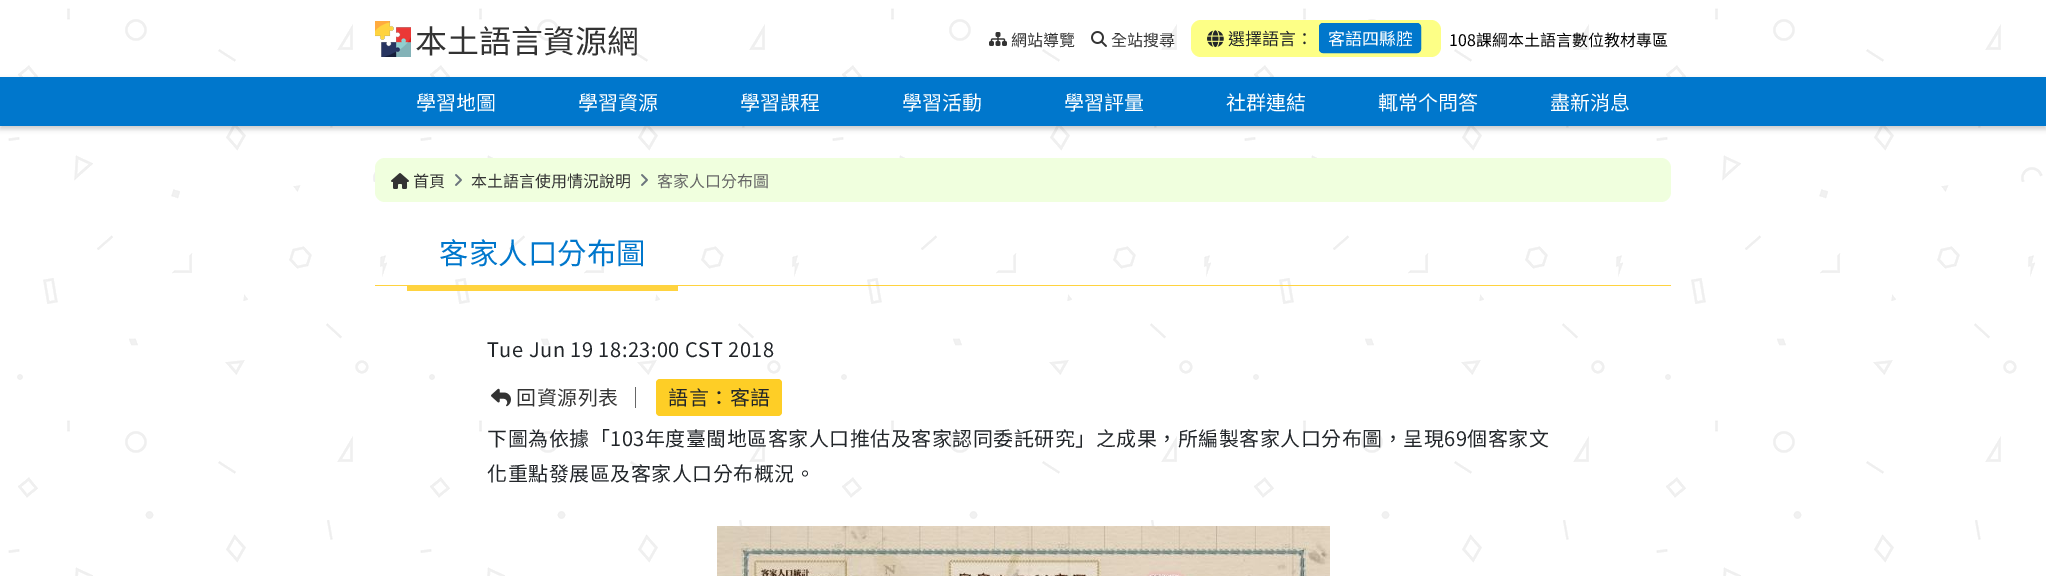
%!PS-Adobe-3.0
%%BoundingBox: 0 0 2046 576
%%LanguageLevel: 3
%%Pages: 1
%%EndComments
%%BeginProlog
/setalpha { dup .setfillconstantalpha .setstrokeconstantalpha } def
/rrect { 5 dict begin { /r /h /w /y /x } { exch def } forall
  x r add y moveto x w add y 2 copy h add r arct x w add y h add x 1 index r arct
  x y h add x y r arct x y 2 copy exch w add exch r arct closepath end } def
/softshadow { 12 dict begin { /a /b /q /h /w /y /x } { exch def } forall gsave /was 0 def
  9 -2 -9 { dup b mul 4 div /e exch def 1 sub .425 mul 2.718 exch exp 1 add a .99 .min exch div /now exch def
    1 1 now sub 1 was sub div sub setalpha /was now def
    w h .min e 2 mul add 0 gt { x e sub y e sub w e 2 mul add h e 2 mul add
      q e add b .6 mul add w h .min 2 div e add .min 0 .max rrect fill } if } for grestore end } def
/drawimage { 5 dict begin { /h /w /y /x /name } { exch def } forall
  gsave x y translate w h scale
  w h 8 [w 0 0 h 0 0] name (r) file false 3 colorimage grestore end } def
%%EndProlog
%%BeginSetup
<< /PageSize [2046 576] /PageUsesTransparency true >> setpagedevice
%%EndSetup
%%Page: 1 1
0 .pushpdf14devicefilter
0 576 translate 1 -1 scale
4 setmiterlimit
1 setgray
0 0 2046 576 rectfill
(images/1.raw) 8 8 2035 568 drawimage
(images/2.raw) 375 21 36 36 drawimage
(images/3.raw) 989 32 18 14 drawimage
(images/4.raw) 1091 31 16 16 drawimage
0.992 1 0.525 setrgbcolor
1191 20 250 37 10 rrect fill
(images/5.raw) 1207 30 17 18 drawimage
0 0.467 0.8 setrgbcolor
1319.5 23.5 101 29 3.5 rrect gsave fill grestore
stroke
0 setgray
0 80 2046 49 0 2.5 0.2 softshadow
0 0.467 0.8 setrgbcolor
0 77 2046 49 rectfill
0.941 1 0.871 setrgbcolor
375 158 1296 44 10 rrect fill
(images/6.raw) 391 173 18 16 drawimage
(images/7.raw) 455 174 7 12 drawimage
(images/7.raw) 641 174 7 12 drawimage
1 0.827 0.247 setrgbcolor
407 286 271 5 rectfill
375 285 1296 1 rectfill
0.4 setgray
635 387 1 21 rectfill
(images/8.raw) 491 388 20 19 drawimage
0.996 0.808 0.149 setrgbcolor
656 379 126 37 4 rrect fill
(images/9.raw) 717 526 613 50 drawimage
/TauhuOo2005-Regular [32 0 0 -32 0 0] selectfont
0.2 setgray
415 53 moveto (本土語言資源網) show
/TauhuOo2005-Regular [16 0 0 -16 0 0] selectfont
1011 46 moveto (網站導覽) show
1111 46 moveto (全站搜尋) show
/TauhuOo2005-Regular [17 0 0 -17 0 0] selectfont
0.129 0.145 0.161 setrgbcolor
1228 45 moveto (選擇語言：) show
1 setgray
1328 45 moveto (客語四縣腔) show
/TauhuOo2005-Regular [16 0 0 -16 0 0] selectfont
0 setgray
1449 46 moveto (108課綱本土語言數位教材專區) show
/TauhuOo2005-Regular [20 0 0 -20 0 0] selectfont
1 setgray
416 110 moveto (學習地圖) show
578 110 moveto (學習資源) show
740 110 moveto (學習課程) show
902 110 moveto (學習活動) show
1064 110 moveto (學習評量) show
1226 110 moveto (社群連結) show
1378 110 moveto (輒常个問答) show
1550 110 moveto (盡新消息) show
/TauhuOo2005-Regular [16 0 0 -16 0 0] selectfont
0.2 setgray
413 187 moveto (首頁) show
471 187 moveto (本土語言使用情況說明) show
0.4 setgray
657 187 moveto (客家人口分布圖) show
/TauhuOo2005-Regular [29.5 0 0 -29.5 0 0] selectfont
0 0.467 0.8 setrgbcolor
439 264 moveto (客家人口分布圖) show
/TauhuOo2005-Regular [20 0 0 -20 0 0] selectfont
0.129 0.145 0.161 setrgbcolor
487 357 moveto 0.5 0 (Tue Jun 19 18:23:00 CST 2018) ashow
0.2 setgray
516 405 moveto 0.5 0 (回資源列表) ashow
0.129 0.145 0.161 setrgbcolor
668 405 moveto 0.5 0 (語言：客語) ashow
487 446 moveto 0.5 0 (下圖為依據「103年度臺閩地區客家人口推估及客家認同委託研究」之成果，所編製客家人口分布圖，呈現69個客家文) ashow
487 481 moveto 0.5 0 (化重點發展區及客家人口分布概況。) ashow
.poppdf14devicefilter showpage
%%EOF
